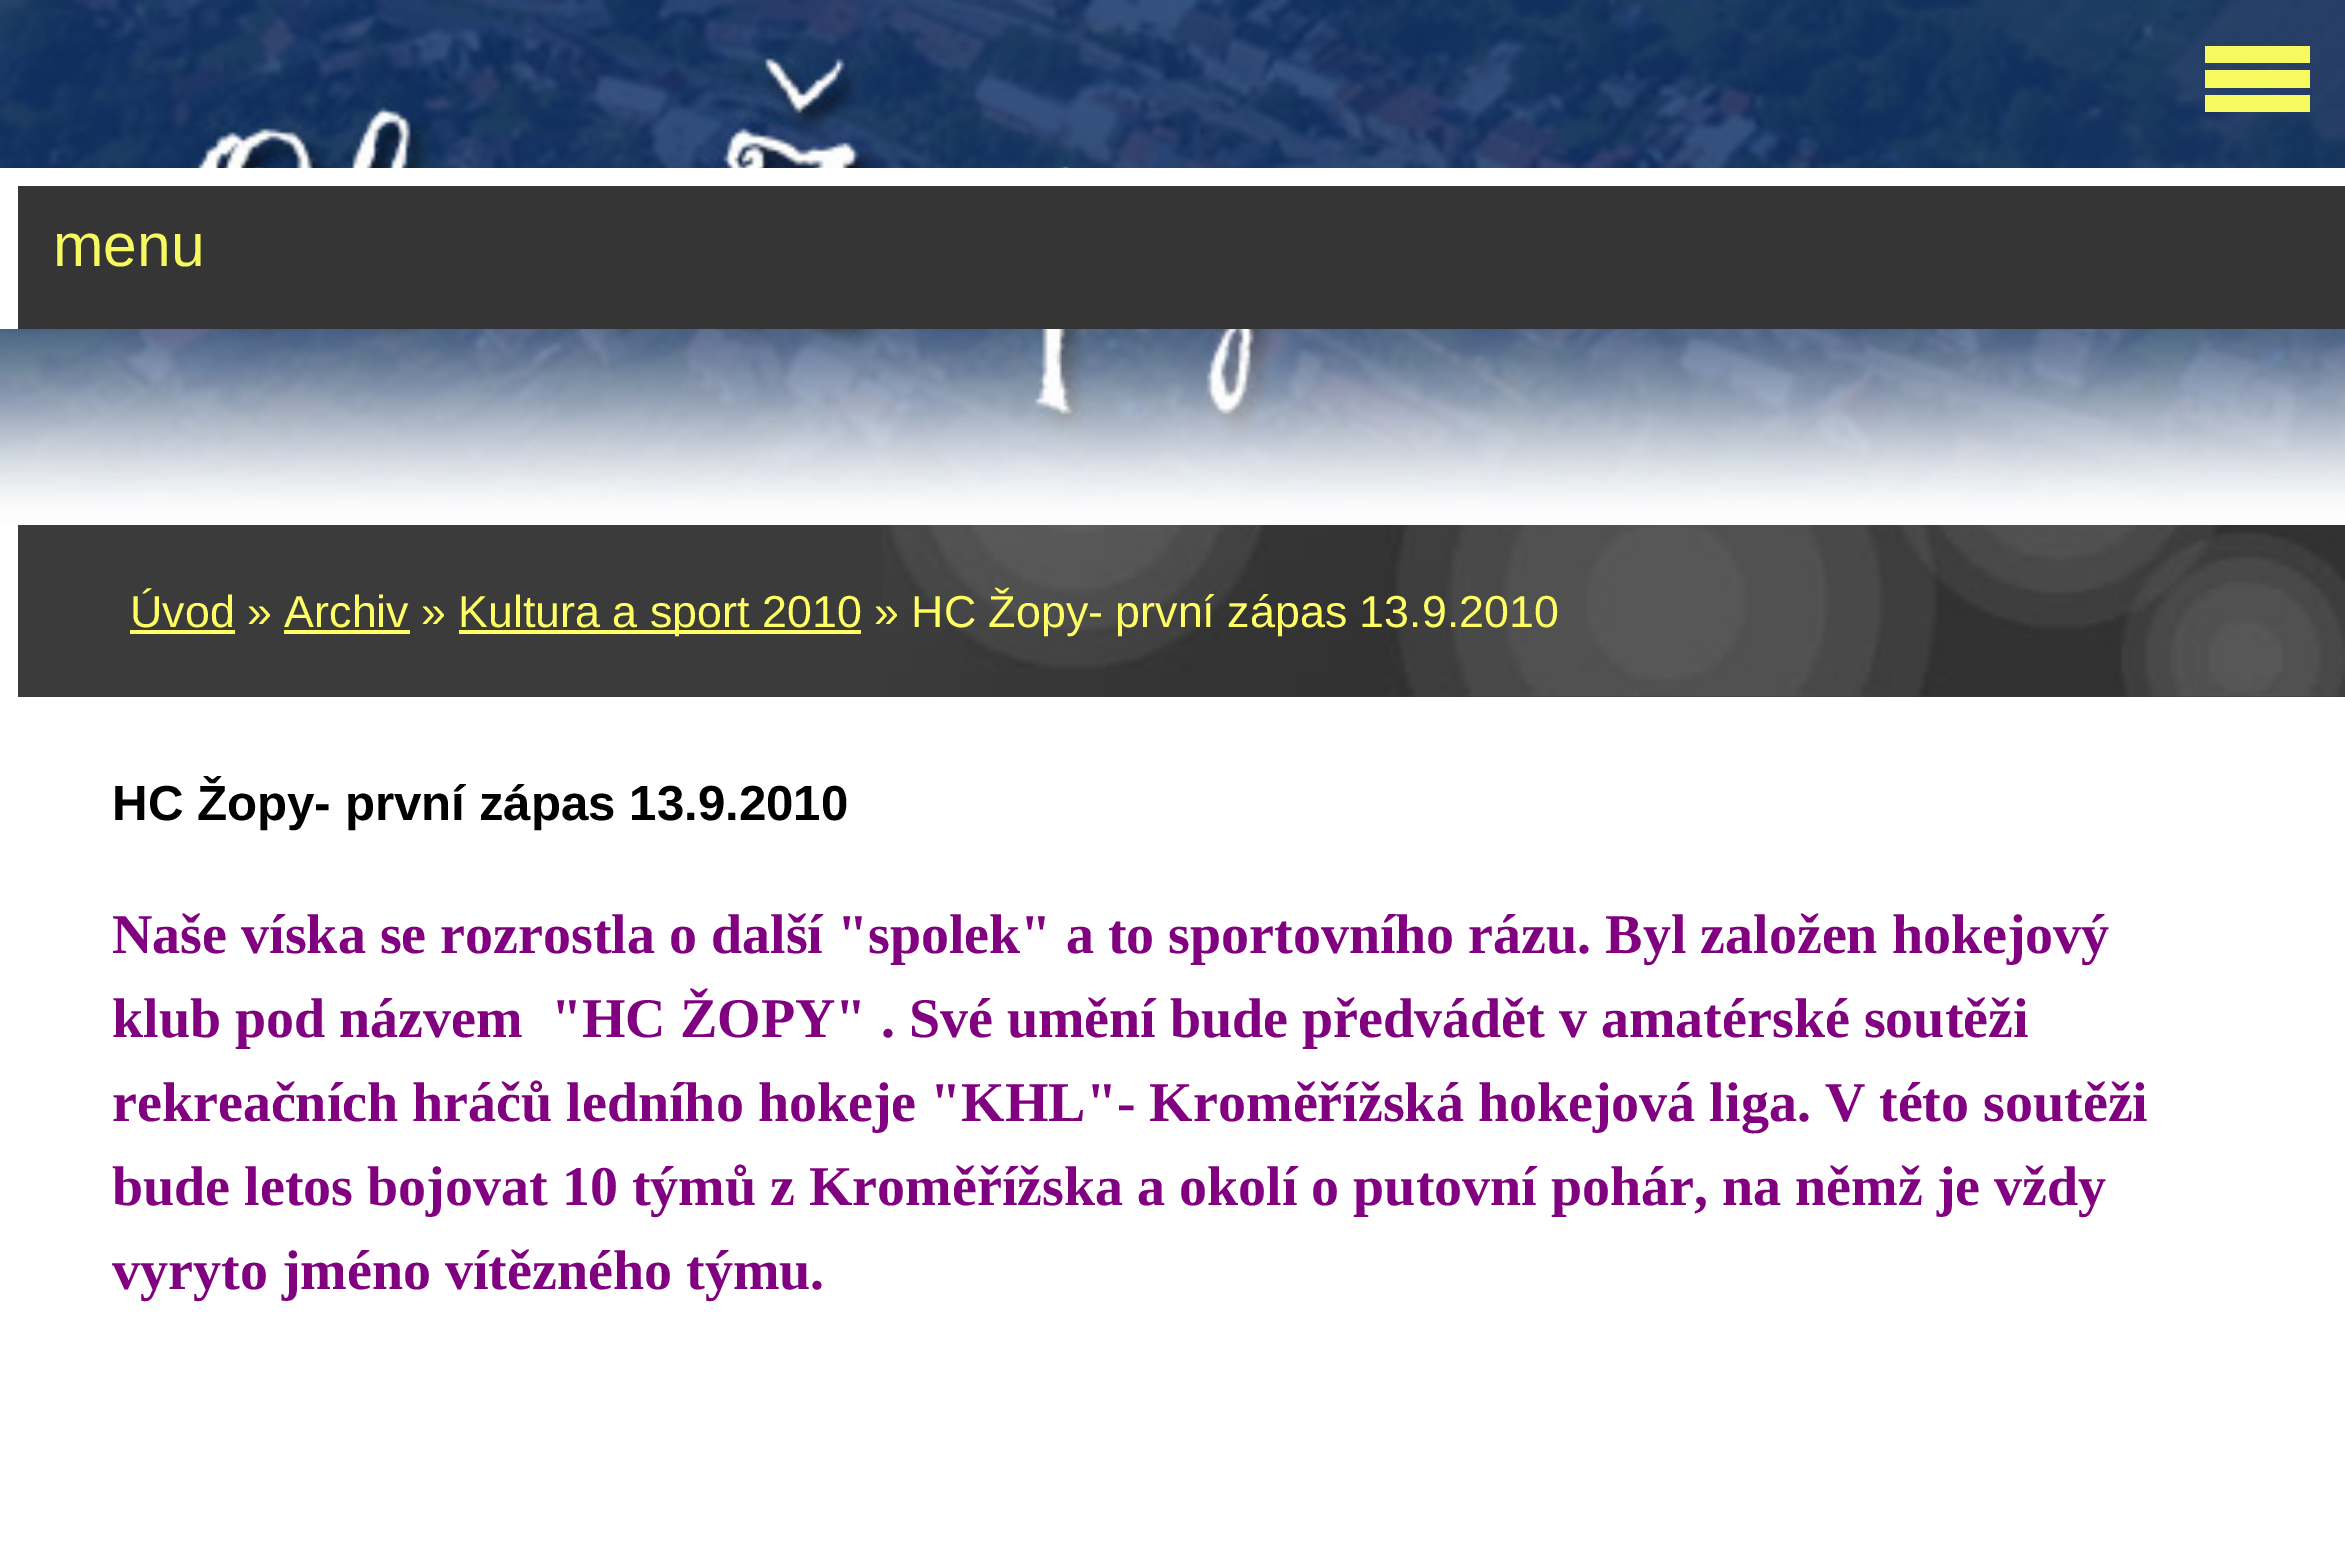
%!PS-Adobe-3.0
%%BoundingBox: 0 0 2345 1552
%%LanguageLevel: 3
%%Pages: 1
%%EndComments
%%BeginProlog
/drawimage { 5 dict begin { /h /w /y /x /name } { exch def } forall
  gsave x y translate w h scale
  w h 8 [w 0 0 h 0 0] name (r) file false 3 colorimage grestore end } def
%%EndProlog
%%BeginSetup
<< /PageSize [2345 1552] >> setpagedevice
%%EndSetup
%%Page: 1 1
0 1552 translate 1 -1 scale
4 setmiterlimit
1 setgray
0 0 2345 1552 rectfill
(images/1.raw) 0 0 2345 525 drawimage
0.969 0.98 0.373 setrgbcolor
2205 46 105 17 rectfill
2205 70 105 18 rectfill
2205 95 105 17 rectfill
1 setgray
0 168 2345 18 rectfill
0.208 setgray
18 186 2327 143 rectfill
1 setgray
0 186 18 143 rectfill
0.231 setgray
18 525 2327 172 rectfill
(images/2.raw) 882 525 1463 172 drawimage
1 1 0.392 setrgbcolor
130 630 105 4 rectfill
459 630 402 4 rectfill
284 630 126 4 rectfill
/LiberationSans-Regular [60.5 0 0 -60.5 0 0] selectfont
0.969 0.98 0.373 setrgbcolor
53 266 moveto (menu) show
/LiberationSans-Regular [44.8 0 0 -44.8 0 0] selectfont
1 1 0.392 setrgbcolor
130 627 moveto (Úvod » Archiv ») show
458 627 moveto (Kultura a sport 2010 » HC Žopy- první zápas 13.9.2010) show
/LiberationSans-Bold [49.25 0 0 -49.25 0 0] selectfont
0 setgray
112 820 moveto (HC Žopy- první zápas 13.9.2010) show
/LiberationSerif-Bold [56 0 0 -56 0 0] selectfont
0.502 0 0.502 setrgbcolor
112 953 moveto (Naše víska se rozrostla o další "spolek" a to sportovního rázu. Byl založen hokejový) show
112 1037 moveto (klub pod názvem  "HC ŽOPY" . Své umění bude předvádět v amatérské soutěži) show
112 1121 moveto (rekreačních hráčů ledního hokeje "KHL"- Kroměřížská hokejová liga. V této soutěži) show
112 1205 moveto (bude letos bojovat 10 týmů z Kroměřížska a okolí o putovní pohár, na němž je vždy) show
112 1289 moveto (vyryto jméno vítězného týmu.) show
showpage
%%EOF
